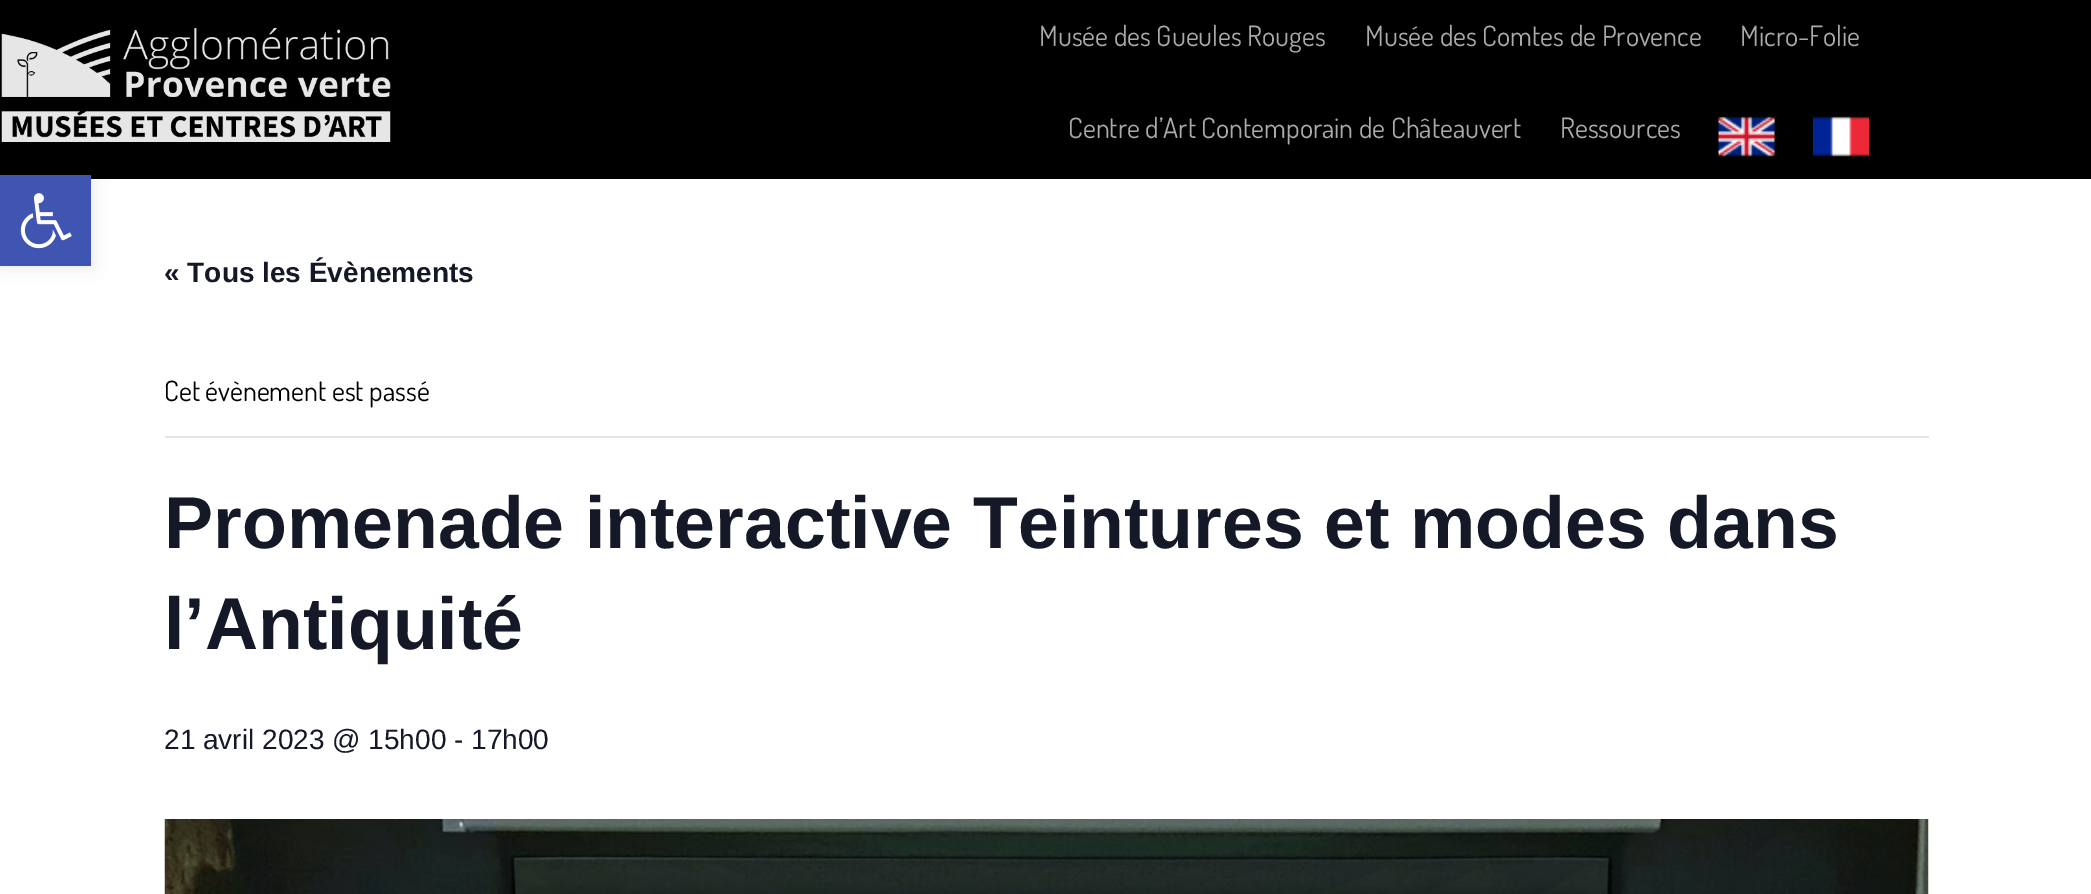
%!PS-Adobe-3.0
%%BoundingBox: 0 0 2091 894
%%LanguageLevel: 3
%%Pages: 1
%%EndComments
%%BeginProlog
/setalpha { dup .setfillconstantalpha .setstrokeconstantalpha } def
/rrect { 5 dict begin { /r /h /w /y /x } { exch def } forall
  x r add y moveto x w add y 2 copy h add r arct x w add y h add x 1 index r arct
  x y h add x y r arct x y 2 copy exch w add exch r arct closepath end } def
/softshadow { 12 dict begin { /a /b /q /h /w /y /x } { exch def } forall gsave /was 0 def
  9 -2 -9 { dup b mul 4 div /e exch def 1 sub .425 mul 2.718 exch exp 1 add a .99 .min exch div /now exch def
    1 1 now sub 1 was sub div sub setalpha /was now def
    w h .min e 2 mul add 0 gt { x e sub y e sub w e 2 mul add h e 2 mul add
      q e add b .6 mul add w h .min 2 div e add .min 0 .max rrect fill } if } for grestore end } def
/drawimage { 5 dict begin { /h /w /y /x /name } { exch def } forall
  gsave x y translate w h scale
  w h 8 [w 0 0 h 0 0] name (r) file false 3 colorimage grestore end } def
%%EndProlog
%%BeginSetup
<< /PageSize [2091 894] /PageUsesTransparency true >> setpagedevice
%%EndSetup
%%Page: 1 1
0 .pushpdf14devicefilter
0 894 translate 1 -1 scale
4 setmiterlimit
1 setgray
0 0 2091 894 rectfill
0 setgray
0 0 2091 179 rectfill
0 175 91 91 0 9 0.1 softshadow
0.251 0.329 0.698 setrgbcolor
0 175 91 91 rectfill
(images/1.raw) 20 193 52 56 drawimage
(images/2.raw) 1 28 390 114 drawimage
(images/3.raw) 1718 116 57 41 drawimage
(images/4.raw) 1813 116 56 41 drawimage
0.894 setgray
165 436 1764 2 rectfill
(images/5.raw) 164 819 1765 75 drawimage
/Dosis-Regular [28 0 0 -28 0 0] selectfont
0.667 setgray
1039 46 moveto (Musée des Gueules Rouges) show
1365 46 moveto (Musée des Comtes de Provence) show
1740 46 moveto (Micro-Folie) show
1068 138 moveto (Centre d’Art Contemporain de Châteauvert) show
1560 138 moveto (Ressources) show
/LiberationSans-Bold [28 0 0 -28 0 0] selectfont
0.078 0.094 0.153 setrgbcolor
164 282 moveto (« Tous les Évènements) show
/Dosis-Regular [28 0 0 -28 0 0] selectfont
0 setgray
164 401 moveto (Cet évènement est passé) show
/LiberationSans-Bold [73.5 0 0 -73.5 0 0] selectfont
0.078 0.094 0.153 setrgbcolor
164 548 moveto (Promenade interactive Teintures et modes dans) show
164 649 moveto (l’Antiquité) show
/LiberationSans-Regular [28 0 0 -28 0 0] selectfont
164 749 moveto (21 avril 2023 @ 15h00 - 17h00) show
.poppdf14devicefilter showpage
%%EOF
